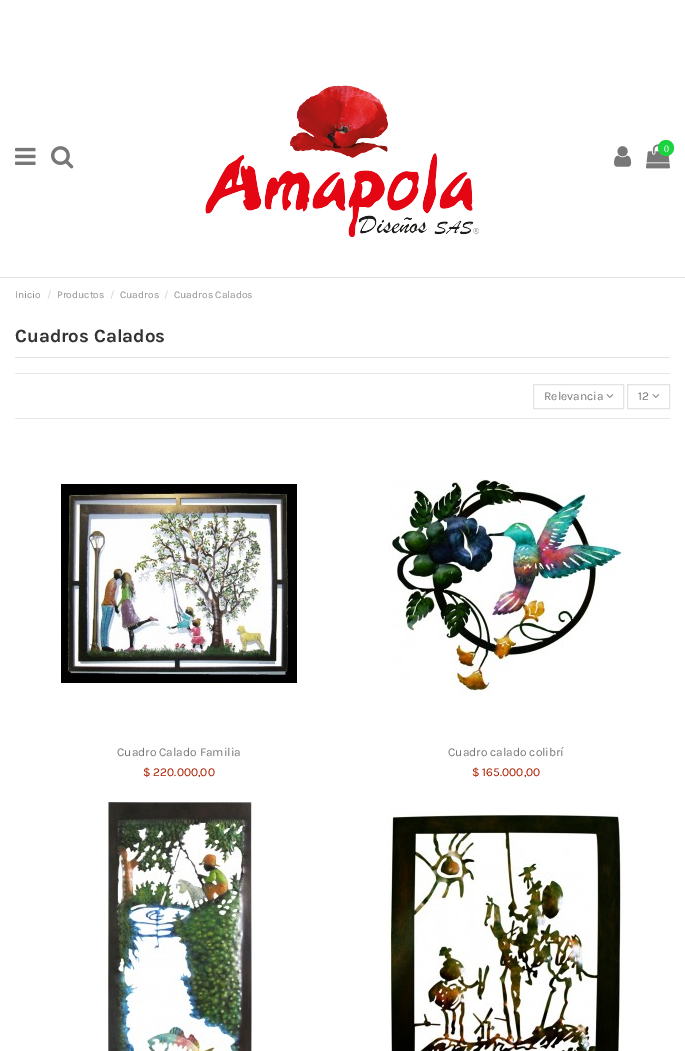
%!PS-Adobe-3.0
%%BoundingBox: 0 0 685 1051
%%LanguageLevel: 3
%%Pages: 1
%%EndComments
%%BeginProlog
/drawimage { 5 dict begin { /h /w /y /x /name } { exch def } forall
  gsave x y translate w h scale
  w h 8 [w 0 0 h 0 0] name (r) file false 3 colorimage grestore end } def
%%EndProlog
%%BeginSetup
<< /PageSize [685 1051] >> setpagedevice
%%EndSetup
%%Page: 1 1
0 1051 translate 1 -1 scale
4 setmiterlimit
1 setgray
0 0 685 1051 rectfill
0.89 setgray
0 277 685 1 rectfill
(images/1.raw) 15 147 21 18 drawimage
(images/2.raw) 51 146 23 23 drawimage
(images/3.raw) 205 85 275 152 drawimage
(images/4.raw) 614 146 18 21 drawimage
(images/5.raw) 646 144 24 25 drawimage
0.106 0.827 0.247 setrgbcolor
newpath 666 148 8 0 360 arc closepath fill
0.89 setgray
15 357 655 1 rectfill
0.906 setgray
15 373 655 1 rectfill
15 418 655 1 rectfill
0.89 setgray
533.5 384.5 90 24 rectstroke
(images/6.raw) 606 394 8 4 drawimage
627.5 384.5 42 24 rectstroke
(images/6.raw) 652 394 8 4 drawimage
(images/7.raw) 61 481 236 204 drawimage
(images/8.raw) 388 479 236 216 drawimage
(images/9.raw) 108 802 145 249 drawimage
(images/10.raw) 388 810 236 241 drawimage
/LiberationSerif-Regular [10 0 0 -10 0 0] selectfont
1 setgray
664 152 moveto (0) show
/Karla-Regular [10.25 0 0 -10.25 0 0] selectfont
0.561 setgray
15 298 moveto (Inicio) show
0.824 setgray
47 298 moveto (/) show
0.561 setgray
57 298 moveto (Productos) show
0.824 setgray
110 298 moveto (/) show
0.561 setgray
120 298 moveto (Cuadros) show
0.824 setgray
164 298 moveto (/) show
0.561 setgray
174 298 moveto (Cuadros Calados) show
/Karla-Bold [18.75 0 0 -18.75 0 0] selectfont
0.2 setgray
15 342 moveto (Cuadros Calados) show
/Karla-Regular [12 0 0 -12 0 0] selectfont
0.467 setgray
544 400 moveto (Relevancia) show
638 400 moveto (12) show
117 756 moveto (Cuadro Calado Familia) show
0.678 0.122 0 setrgbcolor
143 776 moveto ($ 220.000,00) show
0.467 setgray
448 756 moveto (Cuadro calado colibrí) show
0.678 0.122 0 setrgbcolor
472 776 moveto ($ 165.000,00) show
showpage
%%EOF
